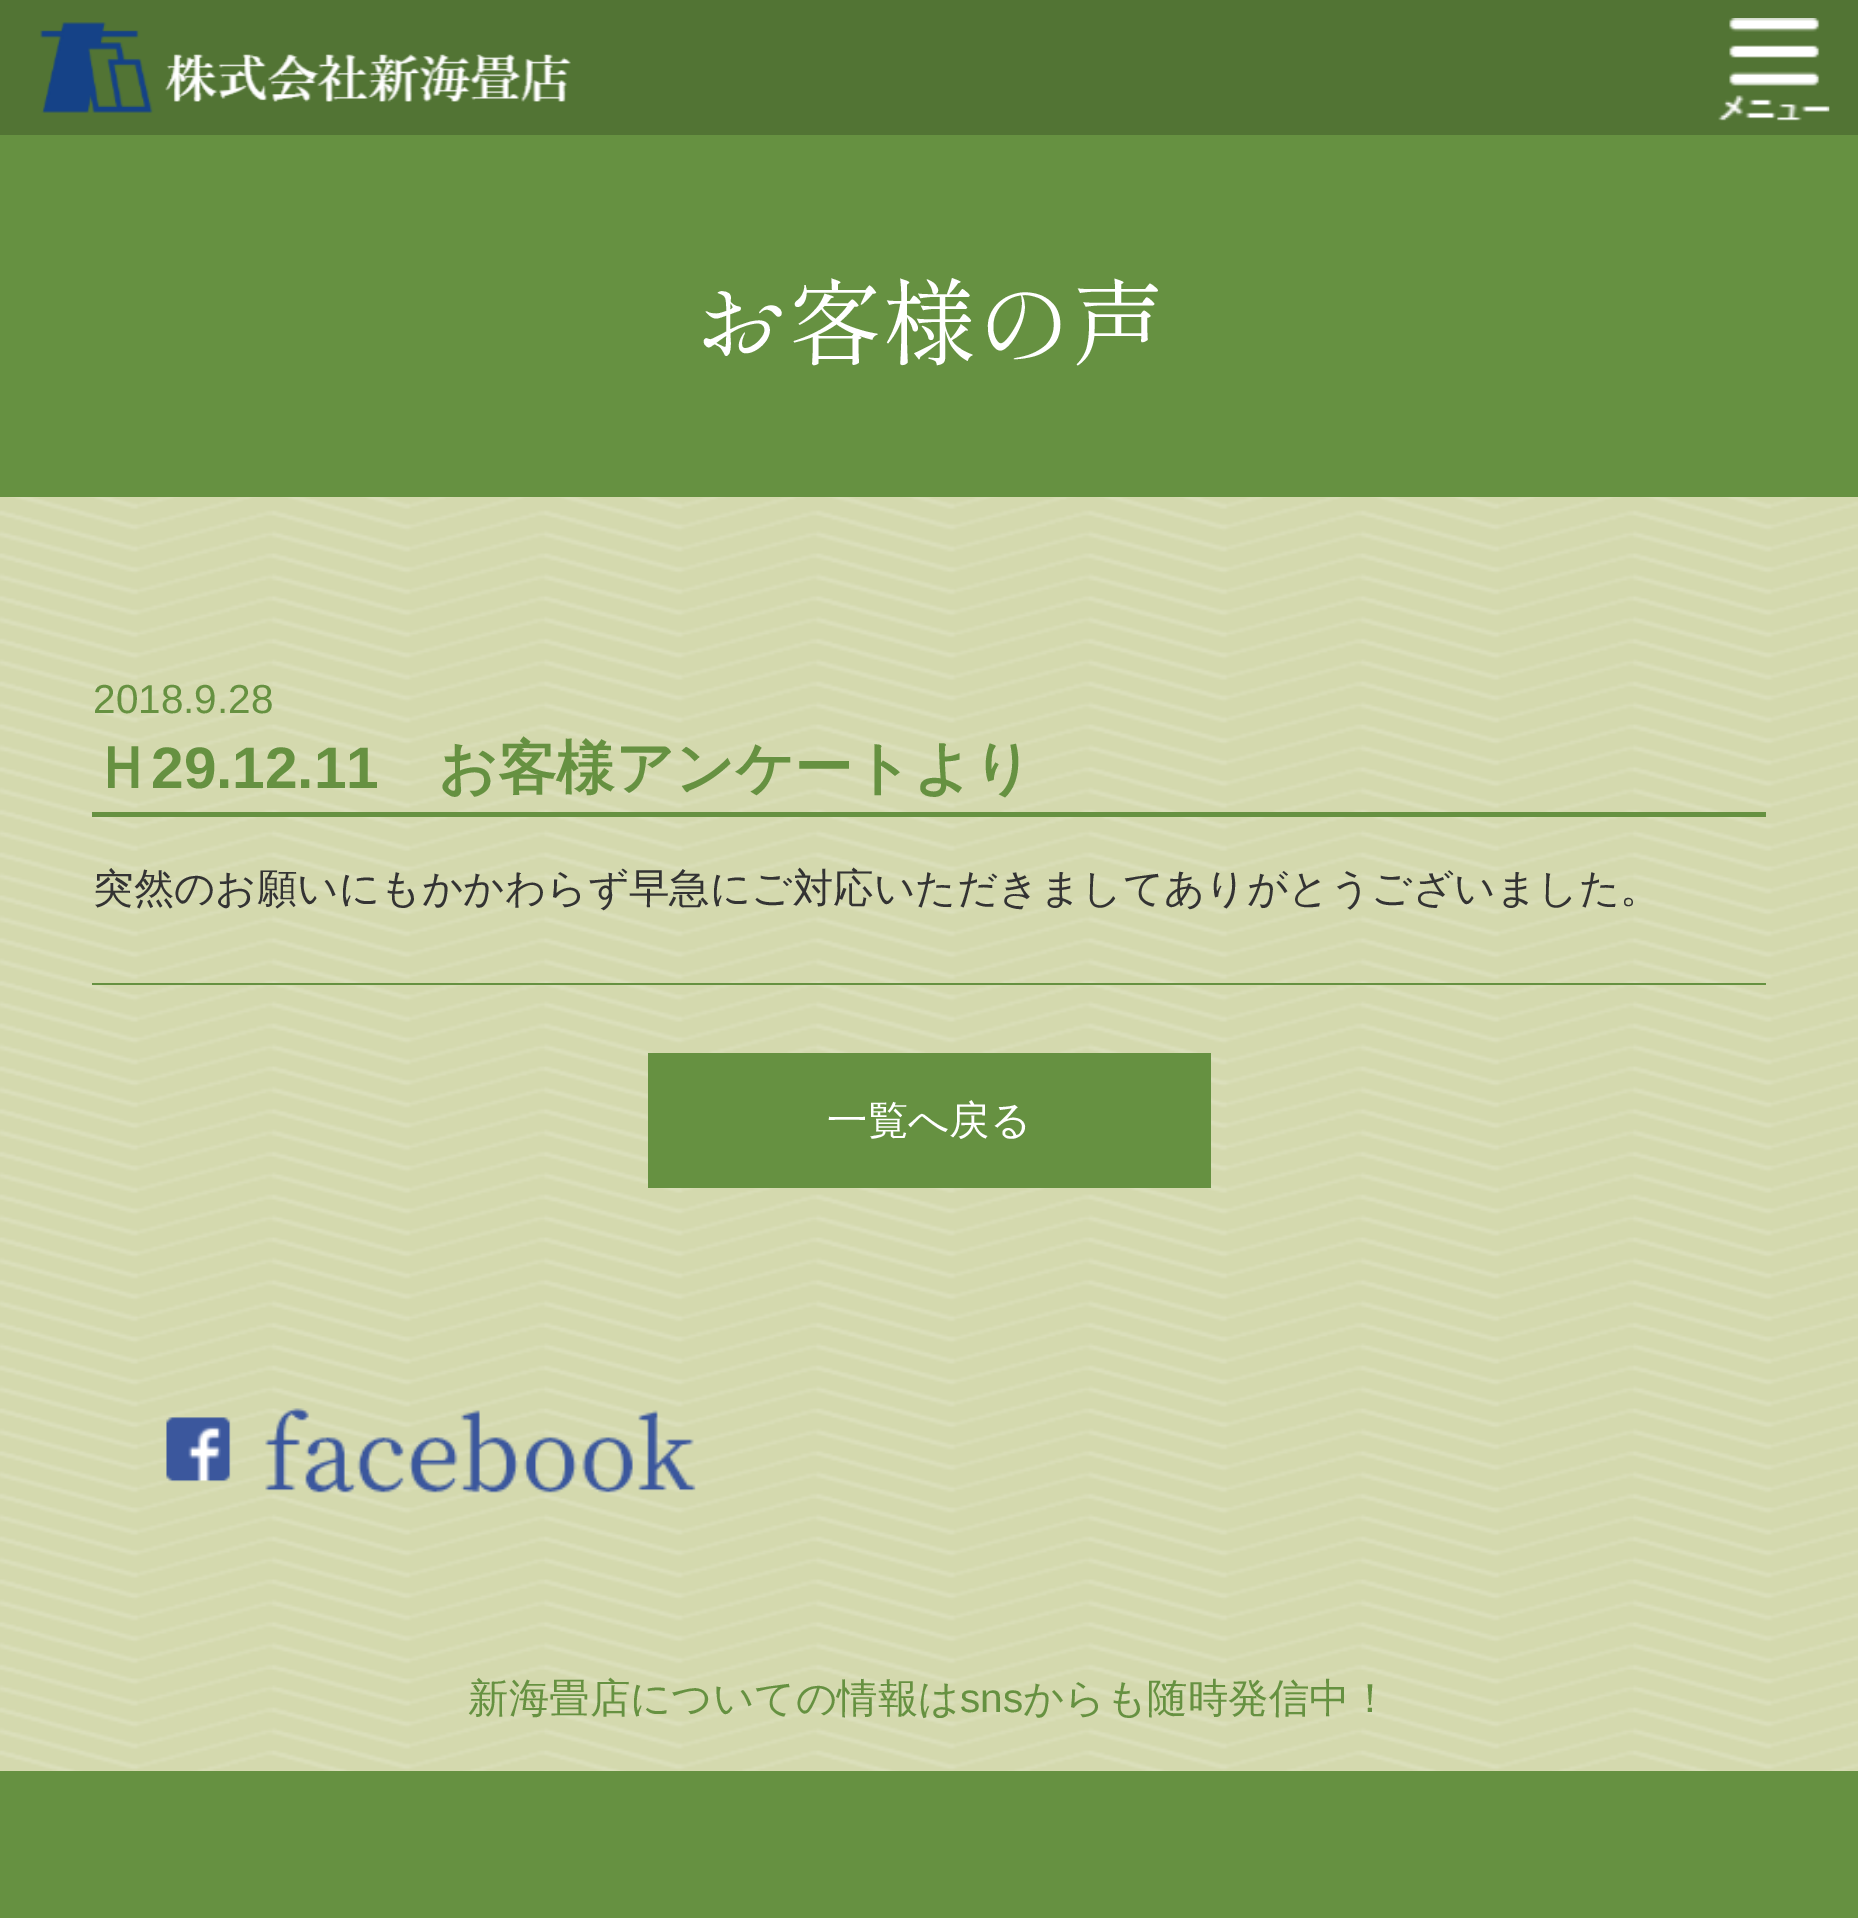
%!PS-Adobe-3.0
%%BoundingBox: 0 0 1858 1918
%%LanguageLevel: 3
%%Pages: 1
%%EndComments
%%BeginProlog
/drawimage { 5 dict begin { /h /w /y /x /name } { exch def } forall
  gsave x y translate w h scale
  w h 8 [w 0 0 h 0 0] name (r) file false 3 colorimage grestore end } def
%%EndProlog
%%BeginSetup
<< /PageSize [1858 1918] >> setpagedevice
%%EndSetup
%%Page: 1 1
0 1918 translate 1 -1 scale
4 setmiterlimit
0.831 0.851 0.682 setrgbcolor
0 0 1858 1918 rectfill
(images/1.raw) 0 497 1858 1274 drawimage
0.322 0.455 0.204 setrgbcolor
0 0 1858 135 rectfill
(images/2.raw) 40 22 531 91 drawimage
(images/3.raw) 1718 18 112 103 drawimage
0.4 0.569 0.255 setrgbcolor
0 135 1858 362 rectfill
92 983 1674 2 rectfill
92 812 1674 5 rectfill
648 1053 563 135 rectfill
(images/4.raw) 166 1408 530 85 drawimage
0 1771 1858 147 rectfill
/ShipporiMincho-Regular [94.5 0 0 -94.5 0 0] selectfont
1 setgray
693 358 moveto (お客様の声) show
/LiberationSans-Regular [40.5 0 0 -40.5 0 0] selectfont
0.4 0.569 0.255 setrgbcolor
93 713 moveto (2018.9.28) show
/WenQuanYiZenHei-Bold [58.5 0 0 -58.5 0 0] selectfont
93 788 moveto (Ｈ) show
/LiberationSans-Bold [58.5 0 0 -58.5 0 0] selectfont
151 788 moveto (29.12.11) show
/WenQuanYiZenHei-Bold [58.5 0 0 -58.5 0 0] selectfont
438 788 moveto (お客様アンケートより) show
/WenQuanYiZenHei-Medium [40.5 0 0 -40.5 0 0] selectfont
0.2 setgray
93 902 moveto (突然のお願いにもかかわらず早急にご対応いただきましてありがとうございました。) show
1 setgray
827 1134 moveto (一覧へ戻る) show
0.4 0.569 0.255 setrgbcolor
468 1712 moveto (新海畳店についての情報は) show
/LiberationSans-Regular [40.5 0 0 -40.5 0 0] selectfont
960 1712 moveto (sns) show
/WenQuanYiZenHei-Medium [40.5 0 0 -40.5 0 0] selectfont
1023 1712 moveto (からも随時発信中！) show
showpage
%%EOF
